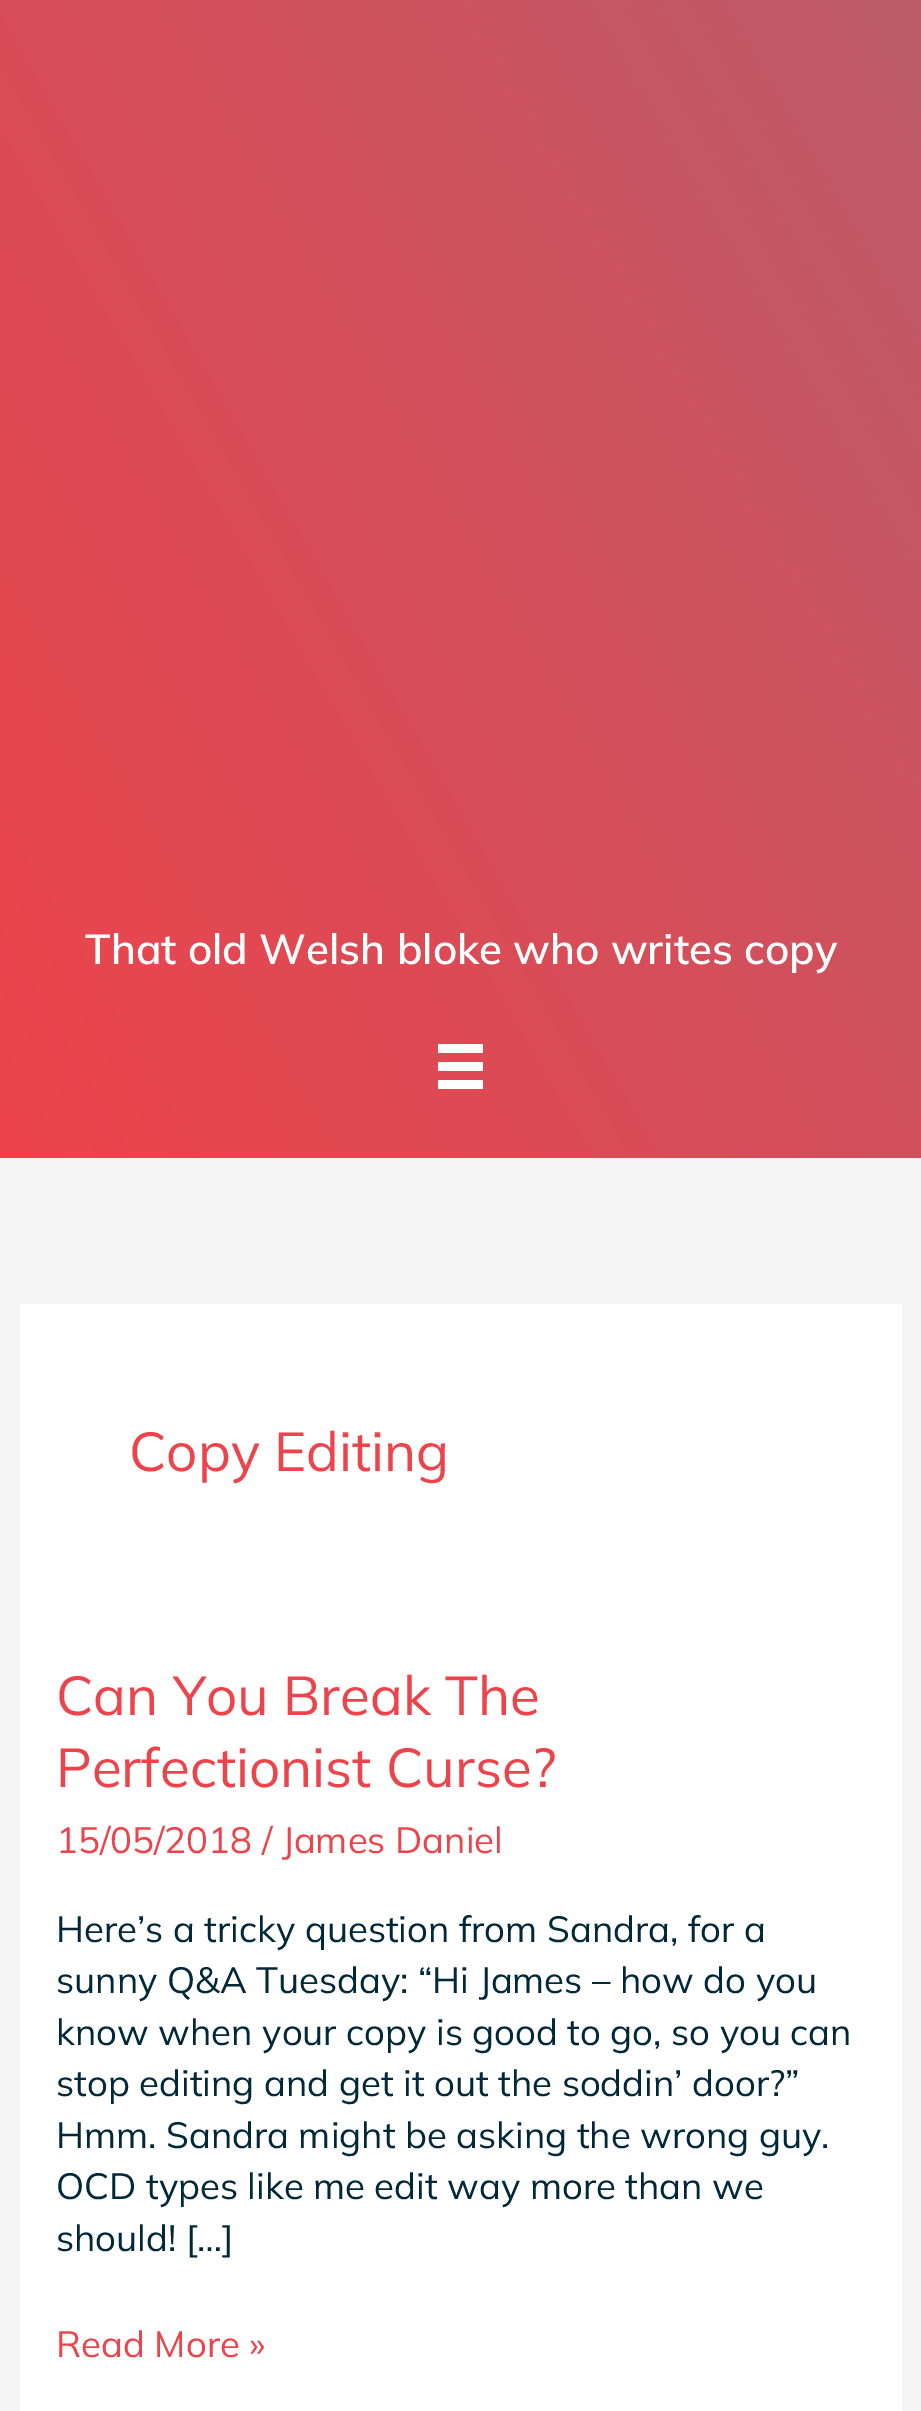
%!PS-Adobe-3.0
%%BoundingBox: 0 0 921 2411
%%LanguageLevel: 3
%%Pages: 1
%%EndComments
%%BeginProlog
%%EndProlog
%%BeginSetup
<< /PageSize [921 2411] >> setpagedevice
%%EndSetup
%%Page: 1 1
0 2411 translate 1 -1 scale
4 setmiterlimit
0.961 setgray
0 0 921 2411 rectfill
gsave newpath 0 0 moveto 921 0 lineto 921 1158 lineto 0 1158 lineto closepath clip newpath
<< /ShadingType 2 /ColorSpace /DeviceRGB /Coords [-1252 -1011 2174 -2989] /Extend [true true] /Function << /FunctionType 2 /Domain [0 1] /C0 [0.929 0.263 0.294] /C1 [0.38 0.529 0.627] /N 1 >> >> shfill grestore
1 setgray
438 1044 45 9 rectfill
438 1062 45 9 rectfill
438 1080 45 9 rectfill
20 1304 882 1107 rectfill
/Mulish-SemiBold [42 0 0 -42 0 0] selectfont
85 964 moveto (That old Welsh bloke who writes copy) show
/Mulish-Regular [54.75 0 0 -54.75 0 0] selectfont
0.929 0.263 0.294 setrgbcolor
129 1471 moveto (Copy Editing) show
56 1715 moveto (Can You Break The) show
56 1787 moveto (Perfectionist Curse?) show
/Mulish-Regular [36.5 0 0 -36.5 0 0] selectfont
56 1853 moveto (15/05/2018 / James Daniel) show
0 0.157 0.22 setrgbcolor
56 1942 moveto (Here’s a tricky question from Sandra, for a) show
56 1993 moveto (sunny Q&A Tuesday: “Hi James – how do you) show
56 2045 moveto (know when your copy is good to go, so you can) show
56 2096 moveto (stop editing and get it out the soddin’ door?”) show
56 2148 moveto (Hmm. Sandra might be asking the wrong guy.) show
56 2199 moveto (OCD types like me edit way more than we) show
56 2251 moveto (should! […]) show
0.929 0.263 0.294 setrgbcolor
56 2357 moveto (Read More ») show
showpage
%%EOF
